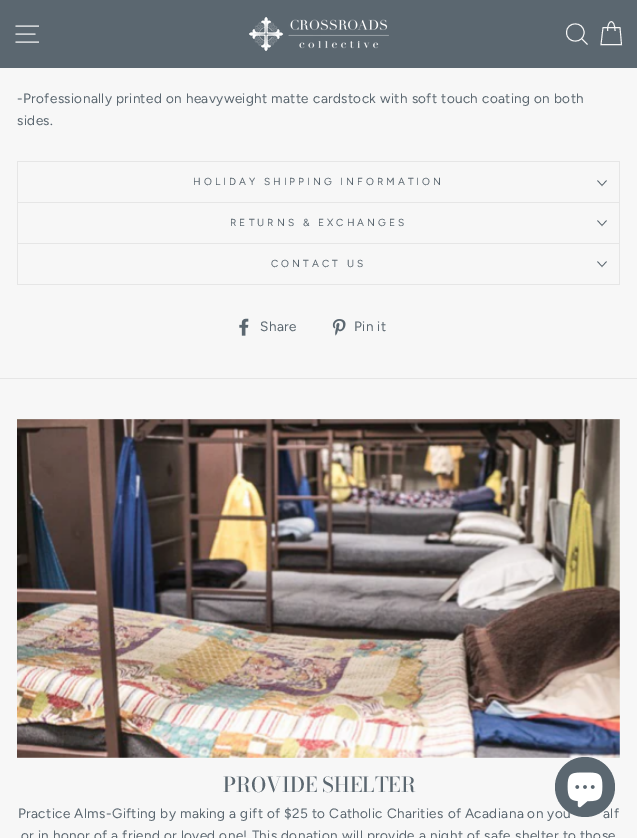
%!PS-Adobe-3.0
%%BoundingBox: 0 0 637 838
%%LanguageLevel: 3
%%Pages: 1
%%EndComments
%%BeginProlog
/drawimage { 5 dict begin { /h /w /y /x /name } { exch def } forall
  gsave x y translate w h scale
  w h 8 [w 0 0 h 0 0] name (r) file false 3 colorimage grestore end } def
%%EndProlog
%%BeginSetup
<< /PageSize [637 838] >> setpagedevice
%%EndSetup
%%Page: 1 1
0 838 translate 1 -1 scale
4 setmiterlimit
0.969 setgray
0 0 637 838 rectfill
0.357 0.404 0.439 setrgbcolor
0 0 637 68 rectfill
0.969 setgray
0.9 setlinewidth
newpath 15.5 26 moveto 39 26 lineto 15.5 34 moveto 35.5 34 lineto 15.5 42 moveto 39 42 lineto stroke
(images/1.raw) 249 17 140 34 drawimage
newpath 584 32.5 moveto 584 44 566.5 44 566.5 32.5 curveto 566.5 21 584 21 584 32.5 curveto closepath 587.5 44.5 moveto 581.5 38.5 lineto 607.5 31 moveto 607.5 18.5 615 18.5 615 31 curveto 603 27.5 moveto 620 27.5 lineto 621.5 44.5 lineto 601 44.5 lineto closepath stroke
0.902 setgray
17 284 603 1 rectfill
17 161 603 1 rectfill
619 161 1 42 rectfill
17 161 1 42 rectfill
0.357 0.404 0.439 setrgbcolor
0.7 setlinewidth
newpath 597.5 180.5 moveto 602 185.5 lineto 606.5 180.5 lineto stroke
0.902 setgray
17 202 603 1 rectfill
619 202 1 41 rectfill
17 202 1 41 rectfill
0.357 0.404 0.439 setrgbcolor
newpath 597.5 220.5 moveto 602 225.5 lineto 606.5 220.5 lineto stroke
0.902 setgray
17 243 603 1 rectfill
619 243 1 41 rectfill
17 243 1 41 rectfill
0.357 0.404 0.439 setrgbcolor
newpath 597.5 261.5 moveto 602 266.5 lineto 606.5 261.5 lineto stroke
(images/2.raw) 239 318 10 18 drawimage
(images/3.raw) 332 319 14 17 drawimage
0.902 setgray
0 378 637 1 rectfill
(images/4.raw) 17 419 603 339 drawimage
0.357 0.404 0.439 setrgbcolor
newpath 585 787 30 0 360 arc closepath fill
/Figtree-Regular [13.6 0 0 -13.6 0 0] selectfont
17 103 moveto 0.35 0 (-Professionally printed on heavyweight matte cardstock with soft touch coating on both) ashow
17 125 moveto 0.35 0 (sides.) ashow
/Figtree-Regular [10.2 0 0 -10.2 0 0] selectfont
193 185 moveto 3.05 0 (HOLIDAY SHIPPING INFORMATION) ashow
230 226 moveto 3.05 0 (RETURNS & EXCHANGES) ashow
271 267 moveto 3.05 0 (CONTACT US) ashow
/Figtree-Regular [13.6 0 0 -13.6 0 0] selectfont
260 331 moveto 0.35 0 (Share) ashow
354 331 moveto 0.35 0 (Pin it) ashow
/BodoniModa-Medium [20.5 0 0 -20.5 0 0] selectfont
223 792 moveto (PROVIDE SHELTER) show
/Figtree-Regular [13.6 0 0 -13.6 0 0] selectfont
18 818 moveto 0.35 0 (Practice Alms-Gifting by making a gift of $25 to Catholic Charities of Acadiana on you) ashow
603 818 moveto 0.35 0 (alf) ashow
21 840 moveto 0.35 0 (or in honor of a friend or loved one! This donation will provide a night of safe shelter to those) ashow
(images/5.raw) 567 772 36 36 drawimage
showpage
%%EOF
